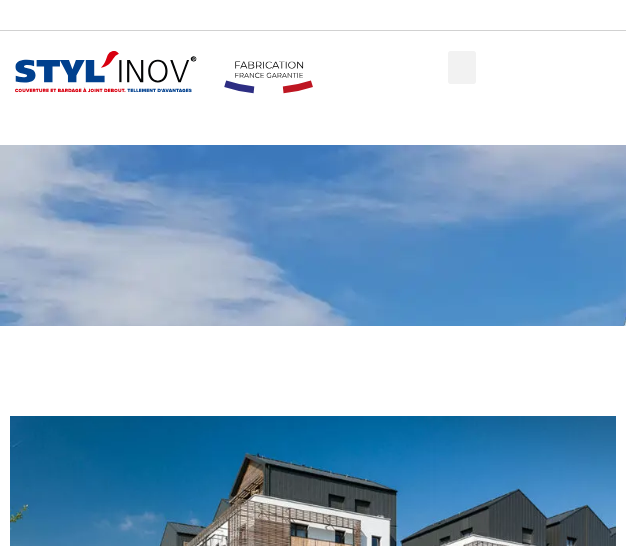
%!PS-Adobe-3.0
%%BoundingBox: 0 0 626 546
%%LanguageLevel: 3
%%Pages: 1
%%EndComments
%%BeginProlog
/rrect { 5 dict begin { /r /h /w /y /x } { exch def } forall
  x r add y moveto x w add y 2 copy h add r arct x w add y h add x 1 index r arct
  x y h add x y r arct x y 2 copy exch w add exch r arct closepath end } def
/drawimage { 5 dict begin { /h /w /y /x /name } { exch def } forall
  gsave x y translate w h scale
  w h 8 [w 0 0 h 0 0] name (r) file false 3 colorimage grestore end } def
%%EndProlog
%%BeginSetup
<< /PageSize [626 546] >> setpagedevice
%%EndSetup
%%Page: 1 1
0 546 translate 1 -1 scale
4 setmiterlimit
1 setgray
0 0 626 546 rectfill
0.82 setgray
0 30 626 1 rectfill
(images/1.raw) 15 51 298 43 drawimage
0.949 setgray
448 51 28 33 3 rrect fill
(images/2.raw) 0 145 626 181 drawimage
(images/3.raw) 10 416 606 130 drawimage
showpage
%%EOF
